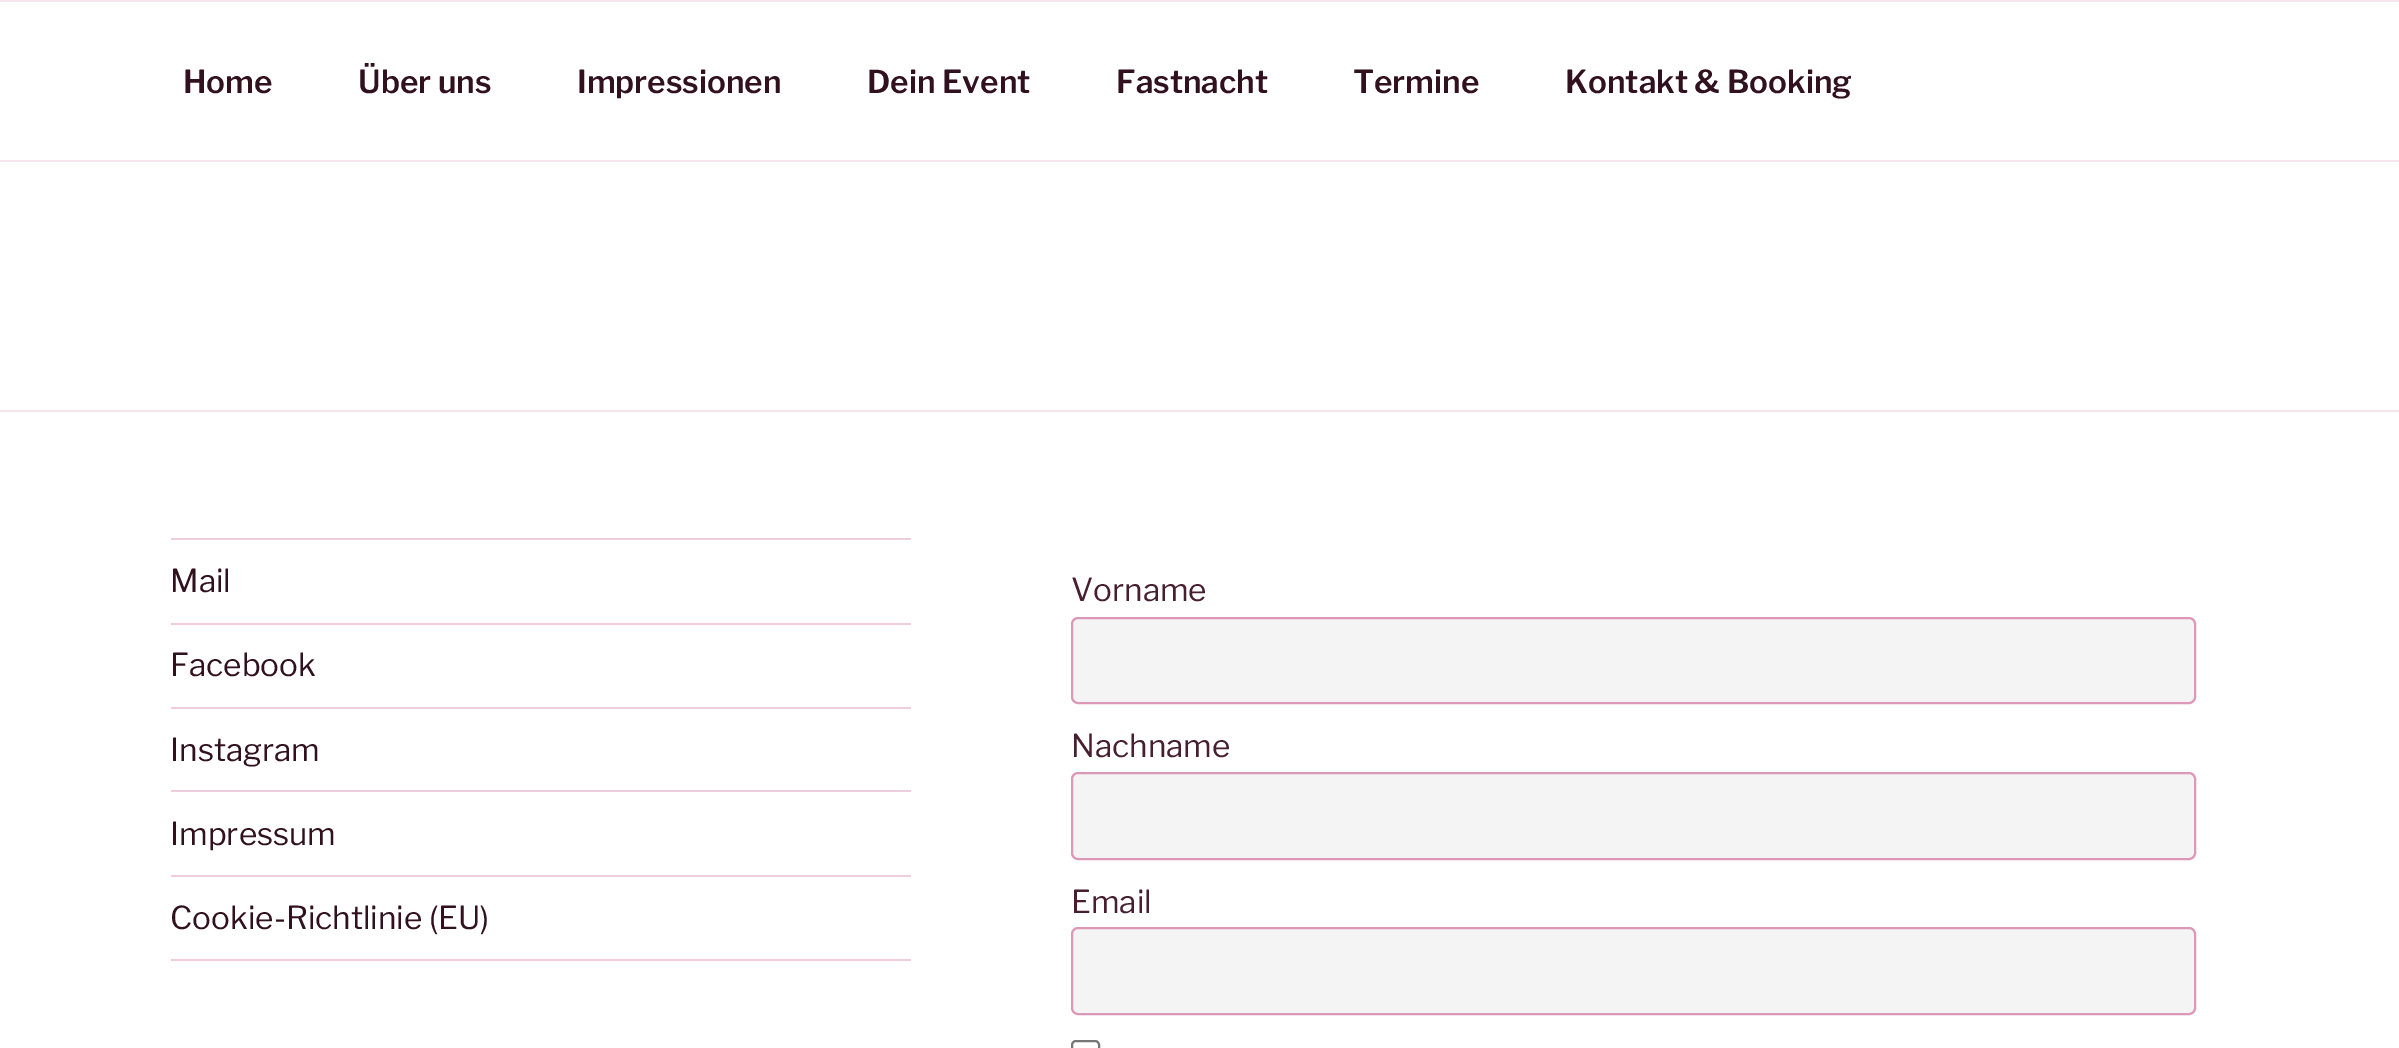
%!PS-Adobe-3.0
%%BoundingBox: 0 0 2399 1048
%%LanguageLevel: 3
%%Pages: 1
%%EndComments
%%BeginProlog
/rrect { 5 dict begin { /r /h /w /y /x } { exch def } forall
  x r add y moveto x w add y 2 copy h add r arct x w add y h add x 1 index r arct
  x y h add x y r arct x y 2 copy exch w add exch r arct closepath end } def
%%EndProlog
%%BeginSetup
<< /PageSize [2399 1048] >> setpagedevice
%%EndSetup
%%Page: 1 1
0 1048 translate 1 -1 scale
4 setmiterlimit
1 setgray
0 0 2399 1048 rectfill
0.965 0.894 0.925 setrgbcolor
0 0 2399 2 rectfill
0 160 2399 2 rectfill
0 410 2399 2 rectfill
0.933 0.804 0.863 setrgbcolor
171 538 740 2 rectfill
171 623 740 2 rectfill
171 707 740 2 rectfill
171 790 740 2 rectfill
171 875 740 2 rectfill
171 959 740 2 rectfill
0.957 setgray
1072 618 1123 85 6 rrect gsave fill grestore
0.867 0.596 0.718 setrgbcolor
2 setlinewidth
stroke
0.957 setgray
1072 773 1123 86 6 rrect gsave fill grestore
0.867 0.596 0.718 setrgbcolor
stroke
0.957 setgray
1072 928 1123 86 6 rrect gsave fill grestore
0.867 0.596 0.718 setrgbcolor
stroke
0.463 setgray
1072 1041 27 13 4 rrect stroke
/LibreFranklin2-Thin [31.5 0 0 -31.5 0 0] selectfont
0.196 0.067 0.122 setrgbcolor
183 93 moveto (Home) show
358 93 moveto (Über uns) show
577 93 moveto (Impressionen) show
867 93 moveto (Dein Event) show
1116 93 moveto (Fastnacht) show
1353 93 moveto (Termine) show
1565 93 moveto (Kontakt & Booking) show
/LibreFranklin-Thin [31.5 0 0 -31.5 0 0] selectfont
170 592 moveto (Mail) show
170 676 moveto (Facebook) show
170 761 moveto (Instagram) show
170 845 moveto (Impressum) show
170 929 moveto (Cookie-Richtlinie \(EU\)) show
0.278 0.122 0.192 setrgbcolor
1071 601 moveto (Vorname) show
1071 757 moveto (Nachname) show
1071 913 moveto (Email) show
showpage
%%EOF
